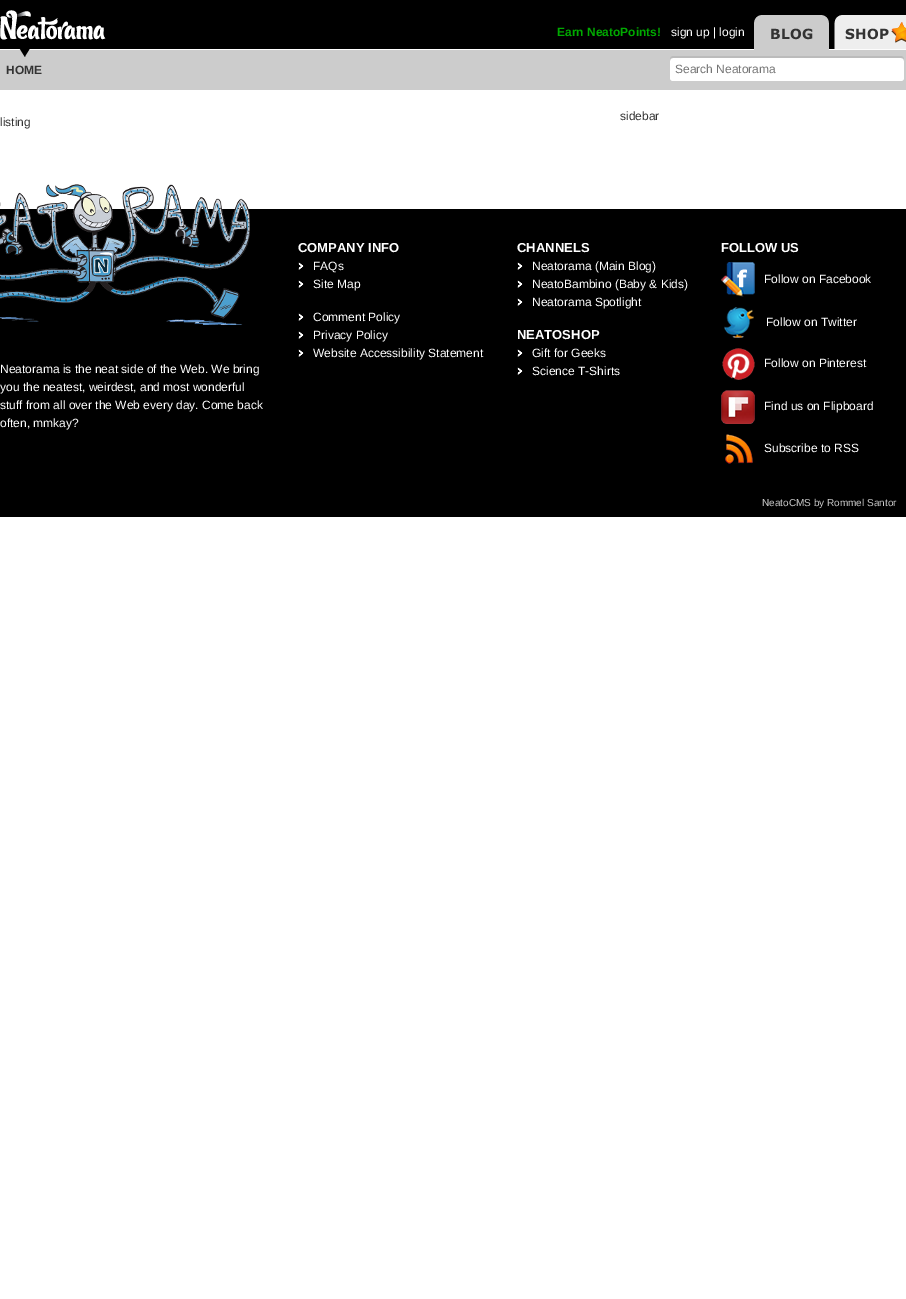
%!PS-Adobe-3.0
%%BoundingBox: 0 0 906 1299
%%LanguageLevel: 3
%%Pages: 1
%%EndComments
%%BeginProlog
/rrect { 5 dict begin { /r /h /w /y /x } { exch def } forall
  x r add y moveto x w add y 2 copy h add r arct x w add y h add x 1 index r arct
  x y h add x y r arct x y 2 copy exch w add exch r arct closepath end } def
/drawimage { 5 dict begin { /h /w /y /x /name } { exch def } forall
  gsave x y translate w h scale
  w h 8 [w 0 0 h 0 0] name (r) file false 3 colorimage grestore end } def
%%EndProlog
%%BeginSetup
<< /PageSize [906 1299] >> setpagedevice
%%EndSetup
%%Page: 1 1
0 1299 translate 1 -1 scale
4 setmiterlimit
1 setgray
0 0 906 1299 rectfill
0 setgray
0 0 906 49 rectfill
(images/1.raw) 0 10 106 30 drawimage
(images/2.raw) 754 15 152 35 drawimage
0.8 setgray
0 50 906 40 rectfill
(images/3.raw) 19 49 11 8 drawimage
1 setgray
670 56 234 25 3 rrect fill
0.733 setgray
newpath 673 58 moveto 901 58 lineto 903 58 904 59 904 61 curveto 904 59 lineto 904 57 903 56 901 56 curveto 673 56 lineto 671 56 670 57 670 59 curveto 670 61 lineto 670 59 671 58 673 58 curveto closepath fill
0 setgray
0 209 906 308 rectfill
(images/4.raw) 0 184 250 141 drawimage
(images/5.raw) 298 262 6 8 drawimage
(images/5.raw) 298 280 6 8 drawimage
(images/5.raw) 298 313 6 8 drawimage
(images/5.raw) 298 331 6 8 drawimage
(images/5.raw) 298 349 6 8 drawimage
(images/5.raw) 517 262 6 8 drawimage
(images/5.raw) 517 280 6 8 drawimage
(images/5.raw) 517 298 6 8 drawimage
(images/5.raw) 517 349 6 8 drawimage
(images/5.raw) 517 367 6 8 drawimage
(images/6.raw) 721 262 34 35 drawimage
(images/7.raw) 724 307 30 31 drawimage
(images/8.raw) 722 348 33 32 drawimage
(images/9.raw) 721 390 34 34 drawimage
(images/10.raw) 725 434 28 30 drawimage
/LiberationSans-Bold [12 0 0 -12 0 0] selectfont
0 0.667 0 setrgbcolor
557 36 moveto (Earn NeatoPoints!) show
/LiberationSans-Regular [12 0 0 -12 0 0] selectfont
1 setgray
671 36 moveto (sign up | login) show
/LiberationSans-Bold [12 0 0 -12 0 0] selectfont
0.2 setgray
6 74 moveto (HOME) show
/LiberationSans-Regular [12 0 0 -12 0 0] selectfont
0.459 setgray
675 73 moveto (Search Neatorama) show
0.2 setgray
620 120 moveto (sidebar) show
0 126 moveto (listing) show
1 setgray
0 373 moveto (Neatorama is the neat side of the Web. We bring) show
0 391 moveto (you the neatest, weirdest, and most wonderful) show
0 409 moveto (stuff from all over the Web every day. Come back) show
0 427 moveto (often, mmkay?) show
/LiberationSans-Bold [13 0 0 -13 0 0] selectfont
298 252 moveto (COMPANY INFO) show
/LiberationSans-Regular [12 0 0 -12 0 0] selectfont
313 270 moveto (FAQs) show
313 288 moveto (Site Map) show
313 321 moveto (Comment Policy) show
313 339 moveto (Privacy Policy) show
313 357 moveto (Website Accessibility Statement) show
/LiberationSans-Bold [13 0 0 -13 0 0] selectfont
517 252 moveto (CHANNELS) show
/LiberationSans-Regular [12 0 0 -12 0 0] selectfont
532 270 moveto (Neatorama \(Main Blog\)) show
532 288 moveto (NeatoBambino \(Baby & Kids\)) show
532 306 moveto (Neatorama Spotlight) show
/LiberationSans-Bold [13 0 0 -13 0 0] selectfont
517 339 moveto (NEATOSHOP) show
/LiberationSans-Regular [12 0 0 -12 0 0] selectfont
532 357 moveto (Gift for Geeks) show
532 375 moveto (Science T-Shirts) show
/LiberationSans-Bold [13 0 0 -13 0 0] selectfont
721 252 moveto (FOLLOW US) show
/LiberationSans-Regular [12 0 0 -12 0 0] selectfont
764 283 moveto (Follow on Facebook) show
766 326 moveto (Follow on Twitter) show
764 367 moveto (Follow on Pinterest) show
764 410 moveto (Find us on Flipboard) show
764 452 moveto (Subscribe to RSS) show
/LiberationSans-Regular [10 0 0 -10 0 0] selectfont
0.8 setgray
762 506 moveto (NeatoCMS by Rommel Santor) show
showpage
%%EOF
